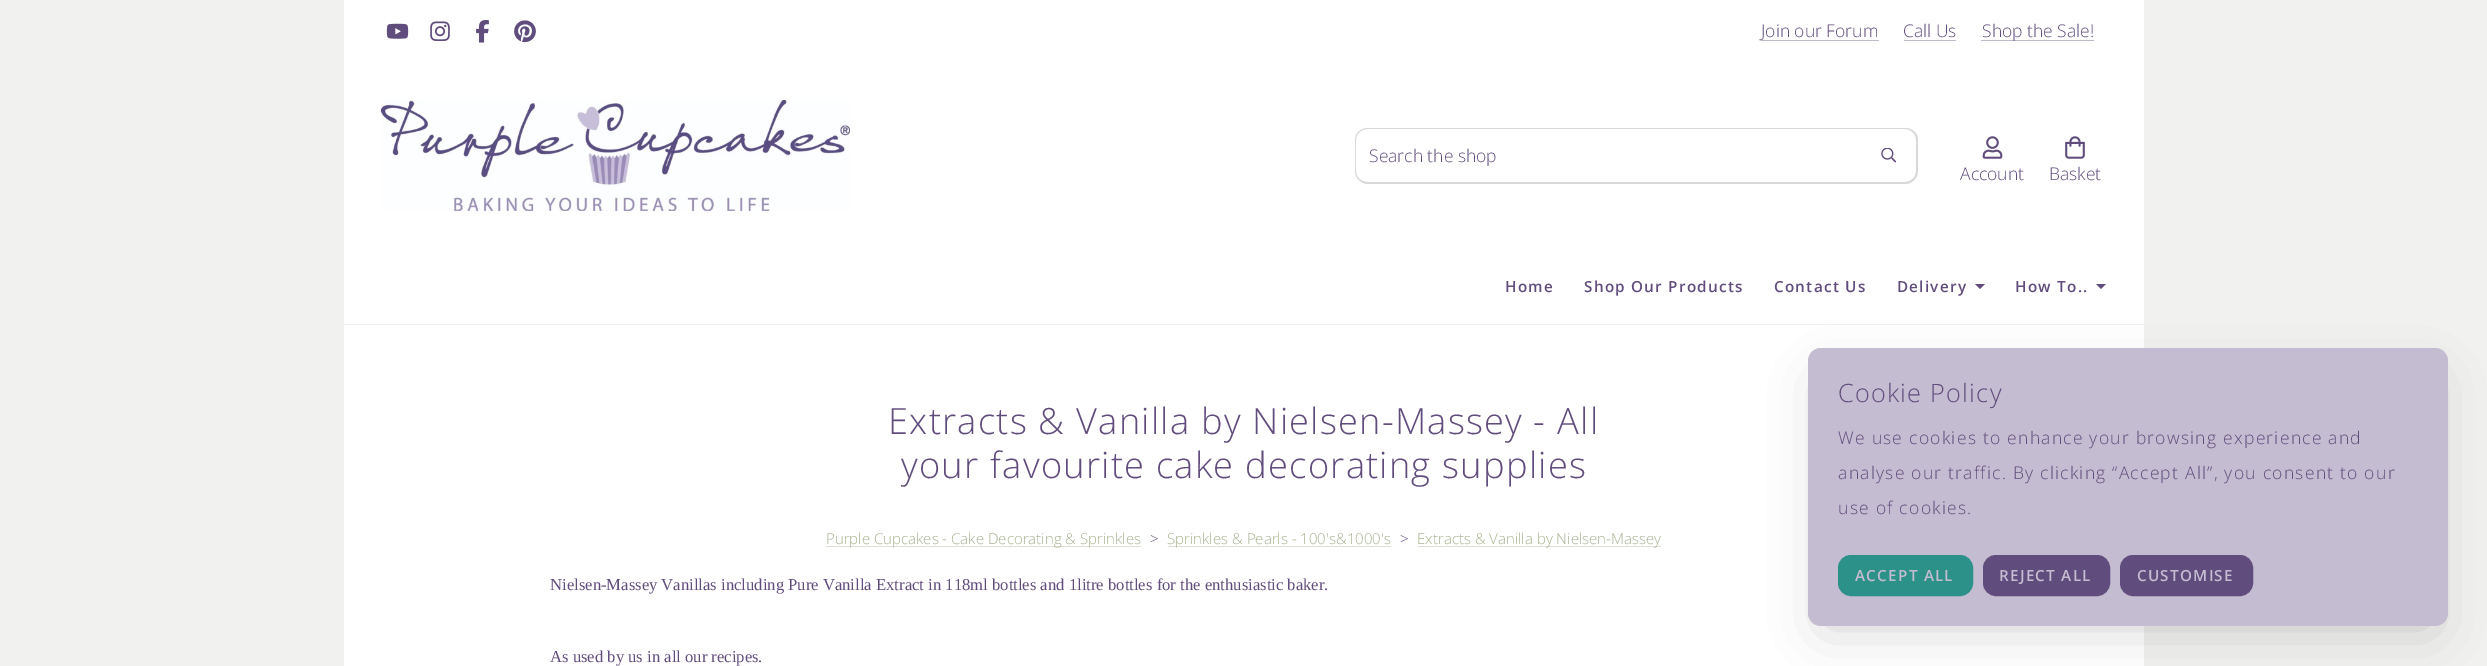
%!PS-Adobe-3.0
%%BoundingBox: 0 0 2487 666
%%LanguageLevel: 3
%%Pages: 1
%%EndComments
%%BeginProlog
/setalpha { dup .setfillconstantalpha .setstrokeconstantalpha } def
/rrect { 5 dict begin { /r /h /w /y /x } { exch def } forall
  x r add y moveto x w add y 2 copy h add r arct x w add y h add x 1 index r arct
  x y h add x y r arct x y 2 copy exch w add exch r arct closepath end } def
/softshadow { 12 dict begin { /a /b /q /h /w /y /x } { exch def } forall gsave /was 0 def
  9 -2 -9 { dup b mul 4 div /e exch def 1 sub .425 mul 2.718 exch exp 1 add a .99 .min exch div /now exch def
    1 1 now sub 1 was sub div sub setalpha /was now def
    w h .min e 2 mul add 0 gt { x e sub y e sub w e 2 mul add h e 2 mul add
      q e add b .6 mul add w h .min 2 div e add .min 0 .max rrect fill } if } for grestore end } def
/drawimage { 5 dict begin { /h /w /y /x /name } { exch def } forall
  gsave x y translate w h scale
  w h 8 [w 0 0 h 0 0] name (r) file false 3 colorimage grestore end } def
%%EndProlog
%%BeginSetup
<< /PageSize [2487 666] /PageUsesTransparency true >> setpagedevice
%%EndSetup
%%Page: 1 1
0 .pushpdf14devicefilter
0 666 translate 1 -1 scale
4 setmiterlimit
0.945 0.949 0.941 setrgbcolor
0 0 2487 666 rectfill
1 setgray
344 0 1800 324 rectfill
(images/1.raw) 386 23 23 16 drawimage
(images/2.raw) 430 21 20 20 drawimage
(images/3.raw) 476 20 13 23 drawimage
(images/4.raw) 514 20 22 23 drawimage
0.753 0.722 0.796 setrgbcolor
1761 40 118 1 rectfill
1904 40 52 1 rectfill
1981 40 113 1 rectfill
(images/5.raw) 381 100 469 111 drawimage
0.851 0.855 0.847 setrgbcolor
newpath 1368 128 moveto 1861 128 lineto 1861 184 lineto 1368 184 lineto 1361 184 1355 178 1355 171 curveto 1355 140 lineto 1355 133 1361 128 1368 128 curveto closepath 1368 129 moveto 1861 129 lineto 1861 182 lineto 1368 182 lineto 1361 182 1356 177 1356 171 curveto 1356 140 lineto 1356 134 1361 129 1368 129 curveto closepath eofill
newpath 1861 128 moveto 1905 128 lineto 1912 128 1918 133 1918 140 curveto 1918 171 lineto 1918 178 1912 184 1905 184 curveto 1861 184 lineto closepath 1861 129 moveto 1905 129 lineto 1911 129 1916 134 1916 140 curveto 1916 171 lineto 1916 177 1911 182 1905 182 curveto 1861 182 lineto closepath eofill
(images/6.raw) 1881 148 15 15 drawimage
(images/7.raw) 1982 136 21 23 drawimage
(images/8.raw) 2065 136 20 23 drawimage
0.38 0.302 0.49 setrgbcolor
newpath 1975 284 moveto 1985 284 lineto 1980 289 lineto closepath fill
newpath 2096 284 moveto 2106 284 lineto 2101 289 lineto closepath fill
1 setgray
344 325 1800 341 rectfill
0.859 0.878 0.827 setrgbcolor
826 546 315 1 rectfill
1168 546 223 1 rectfill
1418 546 243 1 rectfill
0.039 setgray
1825 383 605 243 0 26 0.2 softshadow
0.769 0.737 0.816 setrgbcolor
1808 348 640 278 13 rrect fill
0.169 0.569 0.537 setrgbcolor
1839.5 556.5 132 38 11.5 rrect gsave fill grestore
3 setlinewidth
stroke
0.38 0.302 0.49 setrgbcolor
1984.5 556.5 124 38 11.5 rrect gsave fill grestore
stroke
2121.5 556.5 130 38 11.5 rrect gsave fill grestore
stroke
/OpenSans-Light [17.5 0 0 -17.5 0 0] selectfont
1761 37 moveto (Join our Forum) show
1903 37 moveto (Call Us) show
1982 37 moveto (Shop the Sale!) show
1369 162 moveto (Search the shop) show
1960 180 moveto (Account) show
2049 180 moveto (Basket) show
/OpenSans-SemiBold [15.25 0 0 -15.25 0 0] selectfont
1505 292 moveto 1.25 0 (Home) ashow
1584 292 moveto 1.25 0 (Shop Our Products) ashow
1774 292 moveto 1.25 0 (Contact Us) ashow
1897 292 moveto 1.25 0 (Delivery) ashow
2015 292 moveto 1.25 0 (How To..) ashow
/OpenSans-Light [36.25 0 0 -36.25 0 0] selectfont
888 434 moveto 1.25 0 (Extracts & Vanilla by Nielsen-Massey - All) ashow
901 478 moveto 1.25 0 (your favourite cake decorating supplies) ashow
/OpenSans-Light [15 0 0 -15 0 0] selectfont
0.651 0.698 0.565 setrgbcolor
826 544 moveto (Purple Cupcakes - Cake Decorating & Sprinkles) show
0.38 0.302 0.49 setrgbcolor
1150 544 moveto (>) show
0.651 0.698 0.565 setrgbcolor
1167 544 moveto (Sprinkles & Pearls - 100's&1000's) show
0.38 0.302 0.49 setrgbcolor
1400 544 moveto (>) show
0.651 0.698 0.565 setrgbcolor
1417 544 moveto (Extracts & Vanilla by Nielsen-Massey) show
/LiberationSerif-Regular [16.65 0 0 -16.65 0 0] selectfont
0.38 0.302 0.49 setrgbcolor
550 590 moveto (Nielsen-Massey Vanillas including Pure Vanilla Extract in 118ml bottles and 1litre bottles for the enthusiastic baker.) show
550 662 moveto (As used by us in all our recipes.) show
/OpenSans-Light [25.25 0 0 -25.25 0 0] selectfont
1838 402 moveto 1.25 0 (Cookie Policy) ashow
/OpenSans-Light [17.5 0 0 -17.5 0 0] selectfont
1838 444 moveto 1.25 0 (We use cookies to enhance your browsing experience and) ashow
1838 479 moveto 1.25 0 (analyse our traffic. By clicking “Accept All”, you consent to our) ashow
1838 514 moveto 1.25 0 (use of cookies.) ashow
/OpenSans-SemiBold [15.25 0 0 -15.25 0 0] selectfont
0.769 0.737 0.816 setrgbcolor
1855 581 moveto 1.25 0 (ACCEPT ALL) ashow
1999 581 moveto 1.25 0 (REJECT ALL) ashow
2137 581 moveto 1.25 0 (CUSTOMISE) ashow
.poppdf14devicefilter showpage
%%EOF
